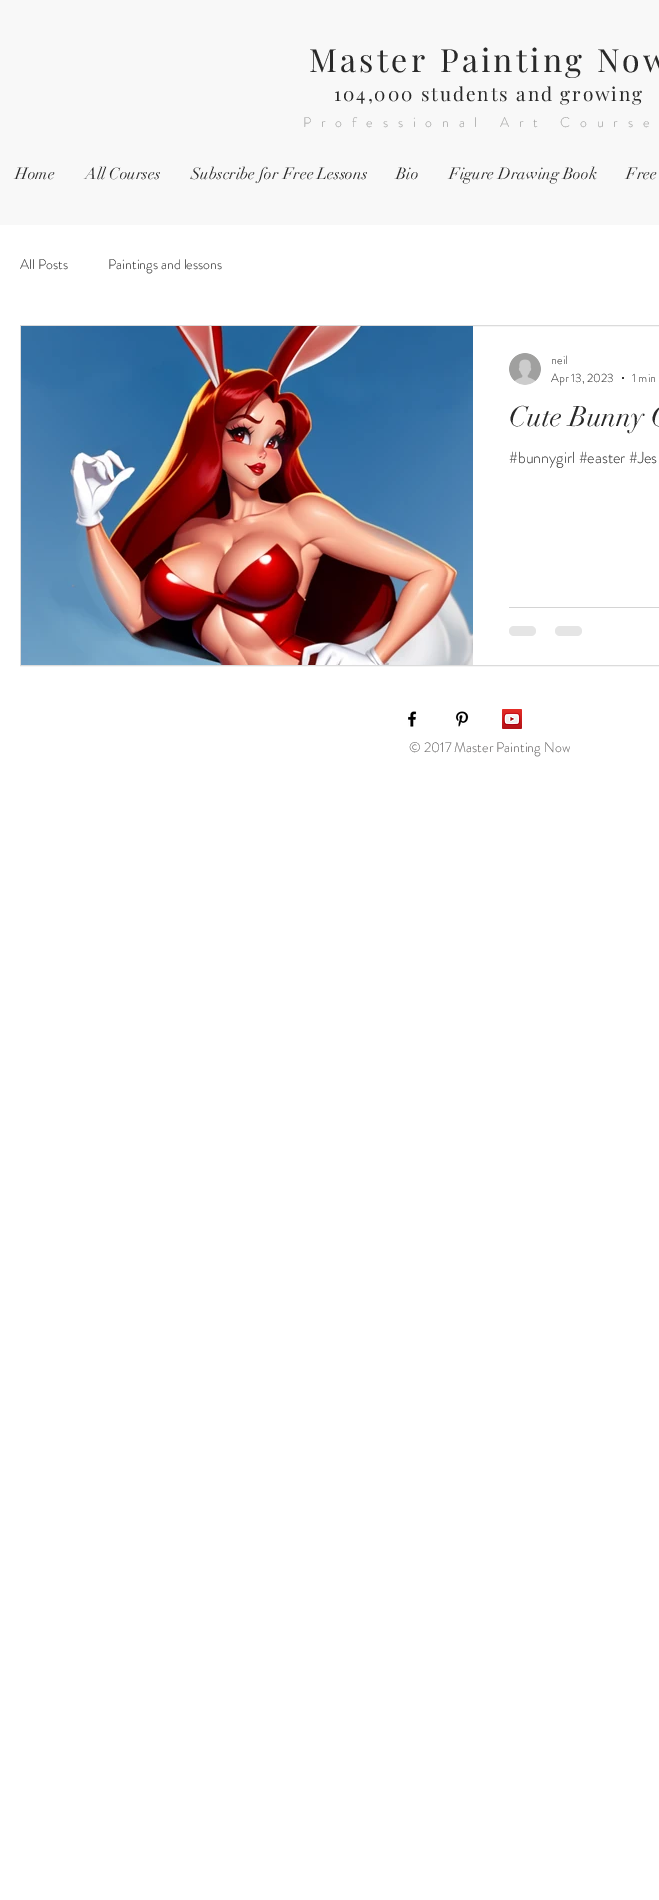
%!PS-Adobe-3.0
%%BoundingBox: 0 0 659 1900
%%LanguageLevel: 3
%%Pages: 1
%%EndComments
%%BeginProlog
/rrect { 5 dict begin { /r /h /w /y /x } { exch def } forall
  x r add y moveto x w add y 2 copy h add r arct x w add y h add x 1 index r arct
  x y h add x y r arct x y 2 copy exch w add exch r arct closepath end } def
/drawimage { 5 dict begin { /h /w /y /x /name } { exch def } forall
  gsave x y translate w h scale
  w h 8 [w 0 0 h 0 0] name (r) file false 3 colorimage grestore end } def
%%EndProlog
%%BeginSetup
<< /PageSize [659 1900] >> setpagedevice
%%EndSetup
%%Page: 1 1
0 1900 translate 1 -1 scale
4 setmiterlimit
1 setgray
0 0 659 1900 rectfill
0.973 setgray
0 0 659 225 rectfill
0.859 setgray
20.5 325.5 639 340 rectstroke
(images/1.raw) 21 326 452 339 drawimage
(images/2.raw) 509 353 32 32 drawimage
0.161 setgray
newpath 623 378 1 0 360 arc closepath fill
0.831 setgray
509 607 150 1 rectfill
0.898 setgray
509 626 27 10 5 rrect fill
555 626 27 10 5 rrect fill
(images/3.raw) 408 711 9 16 drawimage
(images/4.raw) 455 711 14 16 drawimage
(images/5.raw) 502 709 20 20 drawimage
/PlayfairDisplay-Regular [32 0 0 -32 0 0] selectfont
0.161 setgray
309 72 moveto 3.25 0 (Master Painting Now) ashow
/PlayfairDisplay-Regular [19 0 0 -19 0 0] selectfont
334 101 moveto 1.9 0 (104,000 students and growing) ashow
/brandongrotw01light-Light [14 0 0 -14 0 0] selectfont
0.627 0.627 0.624 setrgbcolor
303 127 moveto 9.8 0 (Professional Art Course) ashow
/didot-Regular [16 0 0 -16 0 0] selectfont
0.161 setgray
15 179 moveto (Home) show
85 179 moveto (All Courses) show
191 179 moveto (Subscribe for Free Lessons) show
396 179 moveto (Bio) show
449 179 moveto (Figure Drawing Book) show
626 179 moveto (Free) show
/brandongrotw01light-Light [14 0 0 -14 0 0] selectfont
20 269 moveto (All Posts) show
108 269 moveto (Paintings and lessons) show
/brandongrotw01light-Light [12 0 0 -12 0 0] selectfont
551 364 moveto (neil) show
551 382 moveto (Apr 13, 2023) show
632 382 moveto (1 min) show
/didot-Regular [28 0 0 -28 0 0] selectfont
509 426 moveto (Cute Bunny G) show
/brandongrotw01light-Light [16 0 0 -16 0 0] selectfont
509 463 moveto (#bunnygirl #easter #Jes) show
/brandongrotw01light-Light [14 0 0 -14 0 0] selectfont
0.376 0.369 0.369 setrgbcolor
409 752 moveto (© 2017 Master Painting Now) show
showpage
%%EOF
